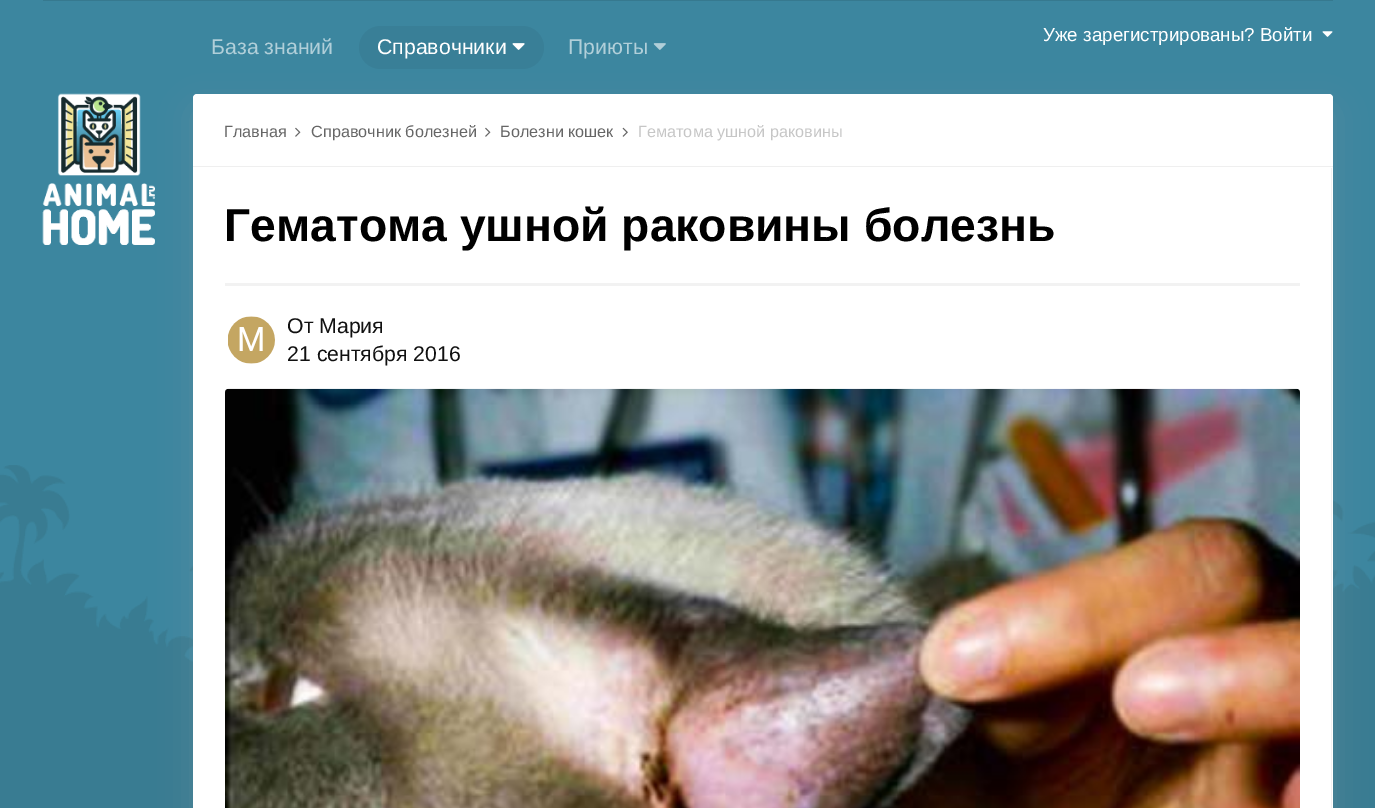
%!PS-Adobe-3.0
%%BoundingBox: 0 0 1375 808
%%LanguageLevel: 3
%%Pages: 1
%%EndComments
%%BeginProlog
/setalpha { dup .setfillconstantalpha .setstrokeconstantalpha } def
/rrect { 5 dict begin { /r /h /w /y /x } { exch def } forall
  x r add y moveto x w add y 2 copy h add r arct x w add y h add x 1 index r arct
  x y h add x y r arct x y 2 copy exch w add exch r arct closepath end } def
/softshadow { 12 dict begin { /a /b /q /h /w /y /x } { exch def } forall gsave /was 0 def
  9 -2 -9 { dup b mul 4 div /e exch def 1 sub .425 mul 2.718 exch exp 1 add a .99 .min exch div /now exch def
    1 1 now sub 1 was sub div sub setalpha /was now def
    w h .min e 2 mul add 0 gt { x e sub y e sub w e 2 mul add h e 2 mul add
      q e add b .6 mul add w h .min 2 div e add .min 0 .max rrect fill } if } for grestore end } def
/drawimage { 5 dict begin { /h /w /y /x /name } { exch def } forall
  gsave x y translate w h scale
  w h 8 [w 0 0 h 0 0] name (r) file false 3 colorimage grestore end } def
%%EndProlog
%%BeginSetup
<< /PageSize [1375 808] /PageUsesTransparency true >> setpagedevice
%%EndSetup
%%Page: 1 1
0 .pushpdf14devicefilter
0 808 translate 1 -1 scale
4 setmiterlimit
0.235 0.525 0.624 setrgbcolor
0 0 1375 808 rectfill
(images/1.raw) 0 465 1375 343 drawimage
0.212 0.475 0.561 setrgbcolor
43 0 1290 1 rectfill
(images/2.raw) 1322 31 11 6 drawimage
0.498 0.6 0.635 setrgbcolor
193 109 1140 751 4 16 0.3 softshadow
0.224 0.498 0.592 setrgbcolor
359 26 185 43 21.5 rrect fill
(images/3.raw) 512 43 13 7 drawimage
(images/4.raw) 653 43 13 7 drawimage
(images/5.raw) 42 93 113 152 drawimage
1 setgray
193 94 1140 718 4 rrect fill
0.937 setgray
193 166 1140 1 rectfill
(images/6.raw) 295 127 6 10 drawimage
(images/6.raw) 485 127 6 10 drawimage
(images/7.raw) 622 127 6 10 drawimage
0.949 setgray
225 283 1075 3 rectfill
(images/8.raw) 228 316 47 48 drawimage
(images/9.raw) 225 388 1075 420 drawimage
1331 168 1 640 rectfill
/LiberationSans-Regular [18.75 0 0 -18.75 0 0] selectfont
1 setgray
1043 41 moveto (Уже зарегистрированы? Войти) show
/LiberationSans-Regular [21.25 0 0 -21.25 0 0] selectfont
0.694 0.812 0.851 setrgbcolor
211 54 moveto (База знаний) show
1 setgray
377 54 moveto (Справочники) show
0.694 0.812 0.851 setrgbcolor
568 54 moveto (Приюты) show
/LiberationSans-Regular [16.25 0 0 -16.25 0 0] selectfont
0.4 setgray
224 137 moveto (Главная) show
311 137 moveto (Справочник болезней) show
500 137 moveto (Болезни кошек) show
0.776 setgray
638 137 moveto (Гематома ушной раковины) show
/LiberationSans-Bold [46.25 0 0 -46.25 0 0] selectfont
0 setgray
224 241 moveto (Гематома ушной раковины болезнь) show
/LiberationSans-Regular [21.25 0 0 -21.25 0 0] selectfont
0.067 setgray
287 333 moveto (От Мария) show
287 361 moveto (21 сентября 2016) show
.poppdf14devicefilter showpage
%%EOF
